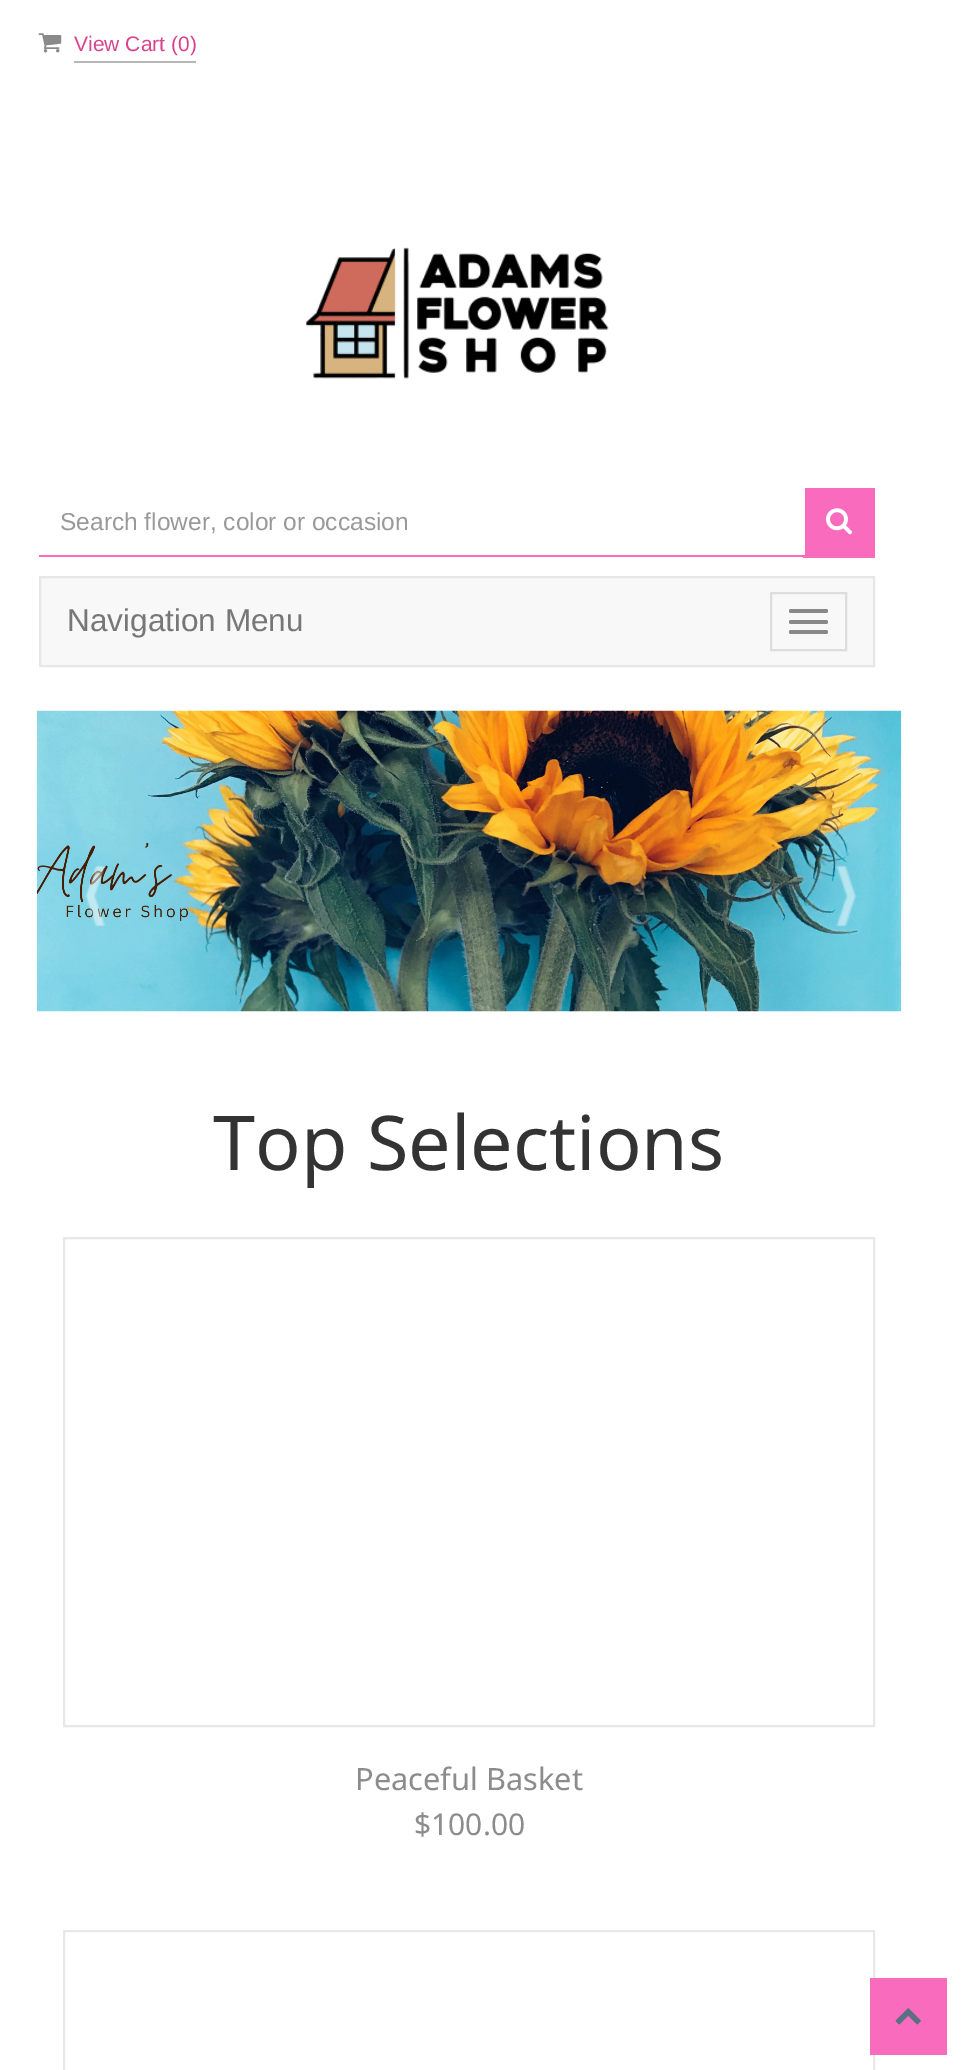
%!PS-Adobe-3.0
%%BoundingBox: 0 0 962 2070
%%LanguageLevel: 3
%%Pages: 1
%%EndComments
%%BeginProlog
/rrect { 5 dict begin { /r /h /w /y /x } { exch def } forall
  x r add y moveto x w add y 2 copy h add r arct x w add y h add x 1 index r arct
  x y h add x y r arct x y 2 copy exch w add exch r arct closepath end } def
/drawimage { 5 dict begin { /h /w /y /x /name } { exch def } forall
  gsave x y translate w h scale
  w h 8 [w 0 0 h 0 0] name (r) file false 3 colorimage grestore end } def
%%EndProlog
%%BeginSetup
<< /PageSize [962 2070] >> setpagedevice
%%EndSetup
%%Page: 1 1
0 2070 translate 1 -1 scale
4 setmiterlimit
1 setgray
0 0 962 2070 rectfill
(images/1.raw) 38 33 24 20 drawimage
0.718 setgray
74 61 122 2 rectfill
(images/2.raw) 305 247 304 132 drawimage
0.973 0.42 0.741 setrgbcolor
803 488 72 70 rectfill
1 setgray
803 488 2 67 rectfill
0.973 0.42 0.741 setrgbcolor
39 555 766 2 rectfill
(images/3.raw) 826 508 26 27 drawimage
0.973 setgray
newpath 40 577 moveto 874 577 lineto 874 666 lineto 40 666 lineto closepath gsave fill grestore
0.906 setgray
2 setlinewidth
stroke
0.867 setgray
771 593 75 57 rectstroke
0.533 setgray
789 609 39 4 2 rrect fill
789 620 39 4 2 rrect fill
789 630 39 4 2 rrect fill
(images/4.raw) 36 710 866 302 drawimage
(images/5.raw) 85 866 21 61 drawimage
(images/6.raw) 836 865 21 62 drawimage
0.91 setgray
64 1238 810 488 rectstroke
64 1931 810 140 rectstroke
0.973 0.42 0.741 setrgbcolor
870 1978 77 77 rectfill
(images/7.raw) 895 2008 26 17 drawimage
/LiberationSans-Regular [21 0 0 -21 0 0] selectfont
0.855 0.259 0.553 setrgbcolor
74 51 moveto (View Cart \(0\)) show
/LiberationSans-Regular [24.5 0 0 -24.5 0 0] selectfont
0.6 setgray
60 530 moveto (Search flower, color or occasion) show
/LiberationSans-Regular [31.5 0 0 -31.5 0 0] selectfont
0.467 setgray
67 631 moveto (Navigation Menu) show
/NotoSans-Regular [75.5 0 0 -75.5 0 0] selectfont
0.2 setgray
213 1170 moveto (Top Selections) show
/NotoSans-Regular [30.75 0 0 -30.75 0 0] selectfont
0.549 setgray
355 1790 moveto (Peaceful Basket) show
/NotoSans-Regular [30 0 0 -30 0 0] selectfont
414 1835 moveto ($100.00) show
showpage
%%EOF
